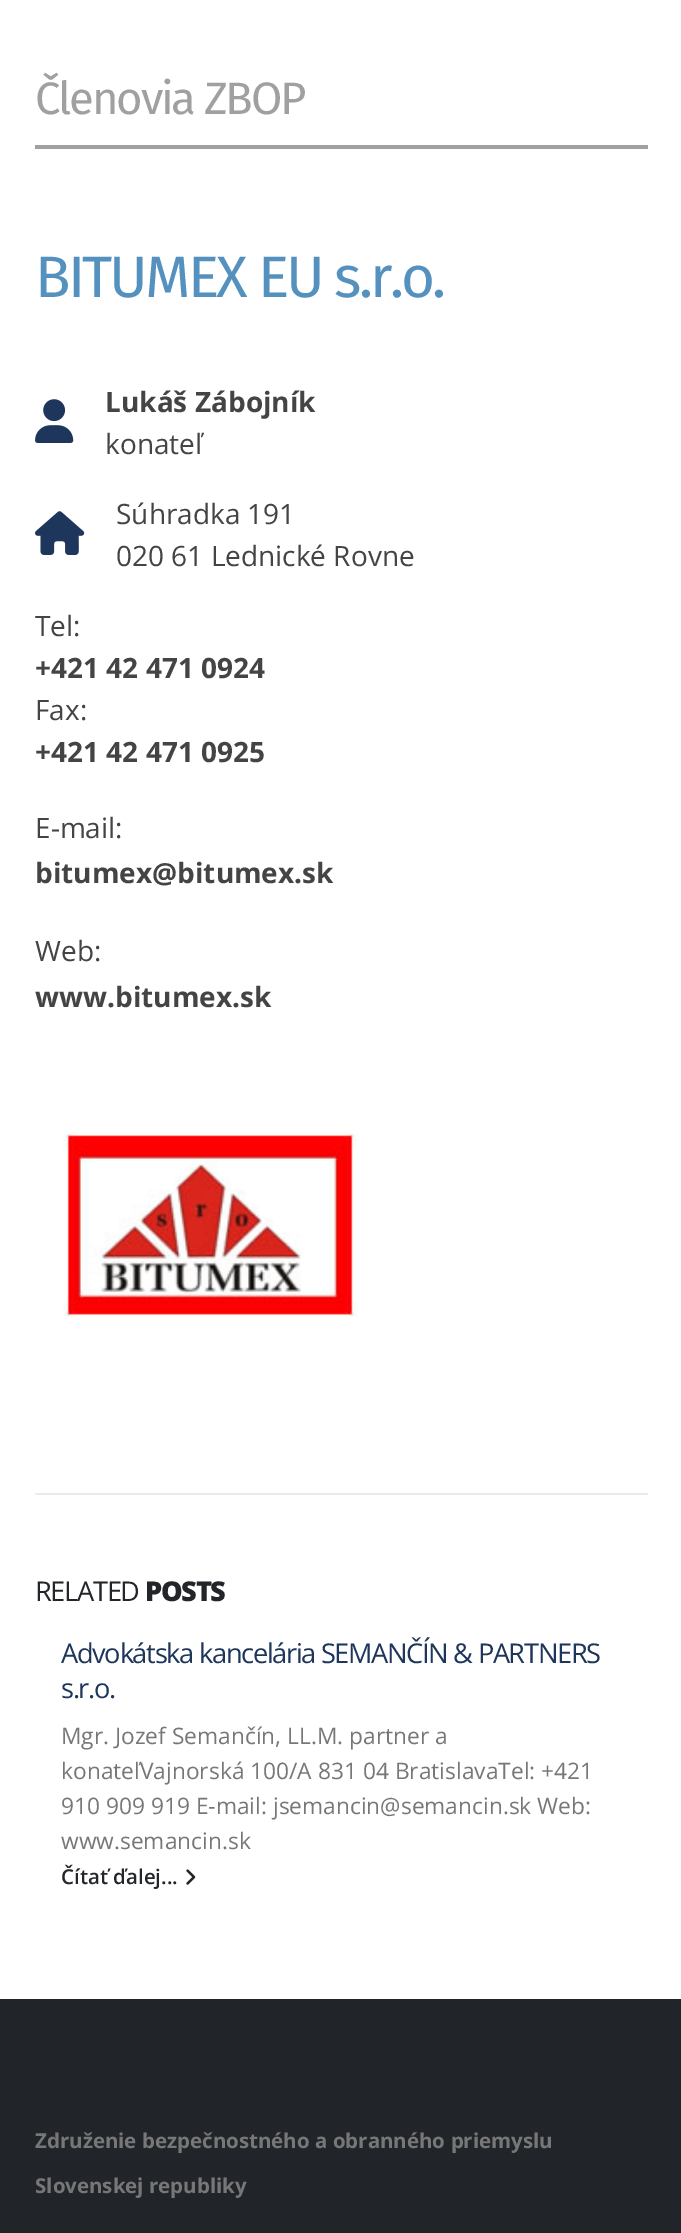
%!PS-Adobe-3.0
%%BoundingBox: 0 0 681 2233
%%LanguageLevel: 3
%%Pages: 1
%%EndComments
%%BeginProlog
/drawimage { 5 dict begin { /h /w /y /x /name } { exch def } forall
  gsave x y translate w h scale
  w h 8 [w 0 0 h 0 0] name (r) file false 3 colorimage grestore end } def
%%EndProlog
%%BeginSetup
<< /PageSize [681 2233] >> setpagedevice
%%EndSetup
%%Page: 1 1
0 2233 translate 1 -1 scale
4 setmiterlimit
1 setgray
0 0 681 2233 rectfill
0.627 setgray
35 145 613 4 rectfill
(images/1.raw) 35 399 39 44 drawimage
(images/2.raw) 35 511 50 44 drawimage
(images/3.raw) 63 1133 295 184 drawimage
0.922 setgray
35 1493 613 2 rectfill
(images/4.raw) 186 1869 10 16 drawimage
0.129 0.145 0.161 setrgbcolor
0 1999 681 234 rectfill
/FiraSans-Regular [45.5 0 0 -45.5 0 0] selectfont
0.627 setgray
35 114 moveto -2.25 0 (Členovia ZBOP) ashow
/FiraSans-Regular [58.5 0 0 -58.5 0 0] selectfont
0.329 0.569 0.745 setrgbcolor
35 297 moveto -2.9 0 (BITUMEX EU s.r.o.) ashow
/OpenSans-Bold [28 0 0 -28 0 0] selectfont
0.267 setgray
105 412 moveto (Lukáš Zábojník) show
/OpenSans-Regular [28 0 0 -28 0 0] selectfont
105 454 moveto (konateľ) show
116 524 moveto (Súhradka 191) show
116 566 moveto (020 61 Lednické Rovne) show
35 636 moveto (Tel:) show
/OpenSans-Bold [28 0 0 -28 0 0] selectfont
35 678 moveto (+421 42 471 0924) show
/OpenSans-Regular [28 0 0 -28 0 0] selectfont
35 720 moveto (Fax:) show
/OpenSans-Bold [28 0 0 -28 0 0] selectfont
35 762 moveto (+421 42 471 0925) show
/OpenSans-Regular [28 0 0 -28 0 0] selectfont
35 838 moveto (E-mail:) show
/OpenSans-Bold [28 0 0 -28 0 0] selectfont
35 883 moveto (bitumex@bitumex.sk) show
/OpenSans-Regular [28 0 0 -28 0 0] selectfont
35 961 moveto (Web:) show
/OpenSans-Bold [28 0 0 -28 0 0] selectfont
35 1007 moveto (www.bitumex.sk) show
/OpenSans-Regular [27.25 0 0 -27.25 0 0] selectfont
0.133 0.145 0.161 setrgbcolor
35 1601 moveto -1.35 0 (RELATED) ashow
/OpenSans-ExtraBold [27.25 0 0 -27.25 0 0] selectfont
145 1601 moveto -1.35 0 (POSTS) ashow
/OpenSans-Regular [27.25 0 0 -27.25 0 0] selectfont
0.122 0.212 0.361 setrgbcolor
61 1663 moveto -1.35 0 (Advokátska kancelária SEMANČÍN & PARTNERS) ashow
61 1698 moveto -1.35 0 (s.r.o.) ashow
/OpenSans-Regular [22.75 0 0 -22.75 0 0] selectfont
0.467 setgray
61 1744 moveto (Mgr. Jozef Semančín, LL.M. partner a) show
61 1779 moveto (konateľVajnorská 100/A 831 04 BratislavaTel: +421) show
61 1814 moveto (910 909 919 E-mail: jsemancin@semancin.sk Web:) show
61 1849 moveto (www.semancin.sk) show
/OpenSans-SemiBold [20.5 0 0 -20.5 0 0] selectfont
0.133 0.145 0.161 setrgbcolor
61 1884 moveto (Čítať ďalej...) show
/OpenSans-Bold [20.5 0 0 -20.5 0 0] selectfont
0.467 setgray
35 2148 moveto (Združenie bezpečnostného a obranného priemyslu) show
35 2193 moveto (Slovenskej republiky) show
showpage
%%EOF
